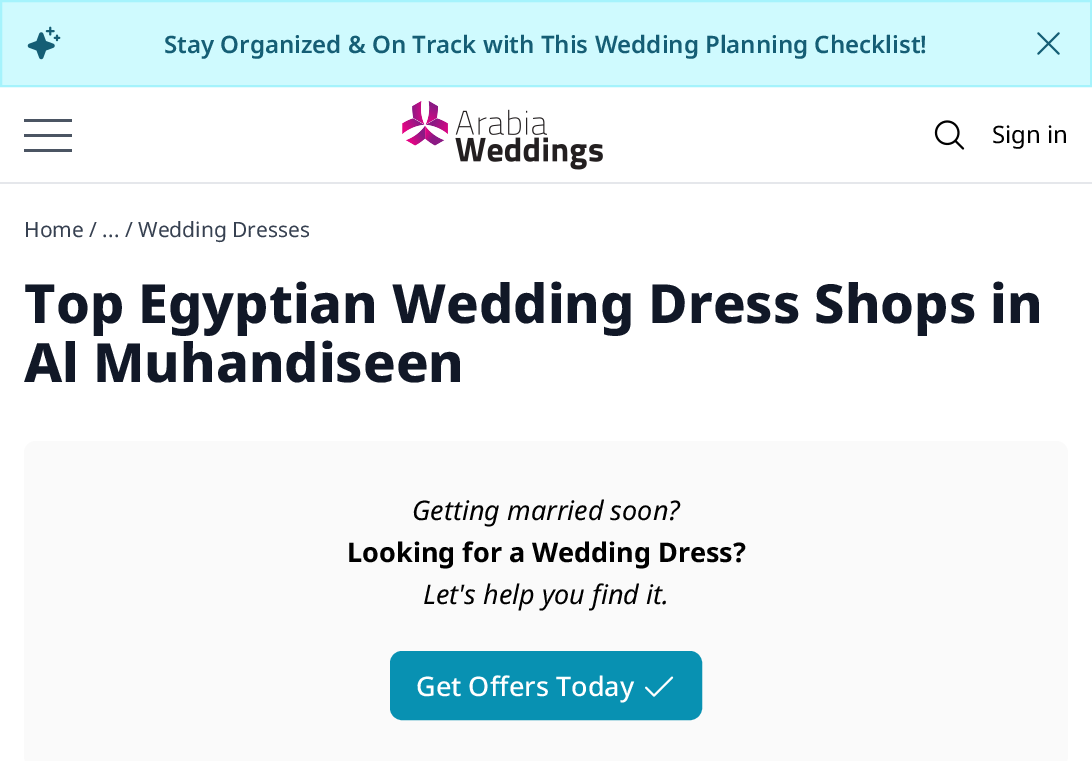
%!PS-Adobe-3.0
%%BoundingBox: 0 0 1092 761
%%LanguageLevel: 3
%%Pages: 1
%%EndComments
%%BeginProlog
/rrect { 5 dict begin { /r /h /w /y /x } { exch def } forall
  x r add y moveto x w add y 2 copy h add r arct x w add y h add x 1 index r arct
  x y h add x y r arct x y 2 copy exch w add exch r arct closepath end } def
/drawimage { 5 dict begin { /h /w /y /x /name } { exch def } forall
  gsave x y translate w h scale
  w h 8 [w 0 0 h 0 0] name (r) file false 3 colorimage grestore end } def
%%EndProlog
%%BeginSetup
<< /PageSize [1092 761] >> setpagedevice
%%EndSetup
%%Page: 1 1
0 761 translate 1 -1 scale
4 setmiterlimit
1 setgray
0 0 1092 761 rectfill
0.812 0.98 0.996 setrgbcolor
newpath 1 1 moveto 1091 1 lineto 1091 86 lineto 1 86 lineto closepath gsave fill grestore
0.647 0.953 0.988 setrgbcolor
2 setlinewidth
stroke
(images/1.raw) 27 26 34 34 drawimage
(images/2.raw) 1037 32 23 23 drawimage
0.898 0.906 0.922 setrgbcolor
0 182 1092 2 rectfill
0.294 0.333 0.388 setrgbcolor
24 119 48 3 rectfill
24 134 48 3 rectfill
24 149 48 3 rectfill
(images/3.raw) 402 101 201 69 drawimage
(images/4.raw) 934 120 31 30 drawimage
0.98 setgray
24 441 1044 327 12 rrect fill
0.031 0.569 0.698 setrgbcolor
391 652 310 67 11 rrect gsave fill grestore
stroke
(images/5.raw) 645 676 29 21 drawimage
/NotoSans-SemiBold [24 0 0 -24 0 0] selectfont
0.082 0.369 0.459 setrgbcolor
164 53 moveto (Stay Organized & On Track with This Wedding Planning Checklist!) show
/NotoSans-Regular [24 0 0 -24 0 0] selectfont
0 setgray
992 143 moveto (Sign in) show
/NotoSans-Regular [21 0 0 -21 0 0] selectfont
0.216 0.255 0.318 setrgbcolor
24 237 moveto (Home / ... / Wedding Dresses) show
/NotoSans-ExtraBold [54 0 0 -54 0 0] selectfont
0.067 0.094 0.153 setrgbcolor
24 323 moveto (Top Egyptian Wedding Dress Shops in) show
24 382 moveto (Al Muhandiseen) show
/NotoSans-Italic [27 0 0 -27 0 0] selectfont
0 setgray
412 520 moveto (Getting married soon?) show
/NotoSans-Bold [27 0 0 -27 0 0] selectfont
347 562 moveto (Looking for a Wedding Dress?) show
/NotoSans-Italic [27 0 0 -27 0 0] selectfont
423 604 moveto (Let's help you find it.) show
/NotoSans-Medium [27 0 0 -27 0 0] selectfont
1 setgray
416 696 moveto (Get Offers Today) show
showpage
%%EOF
